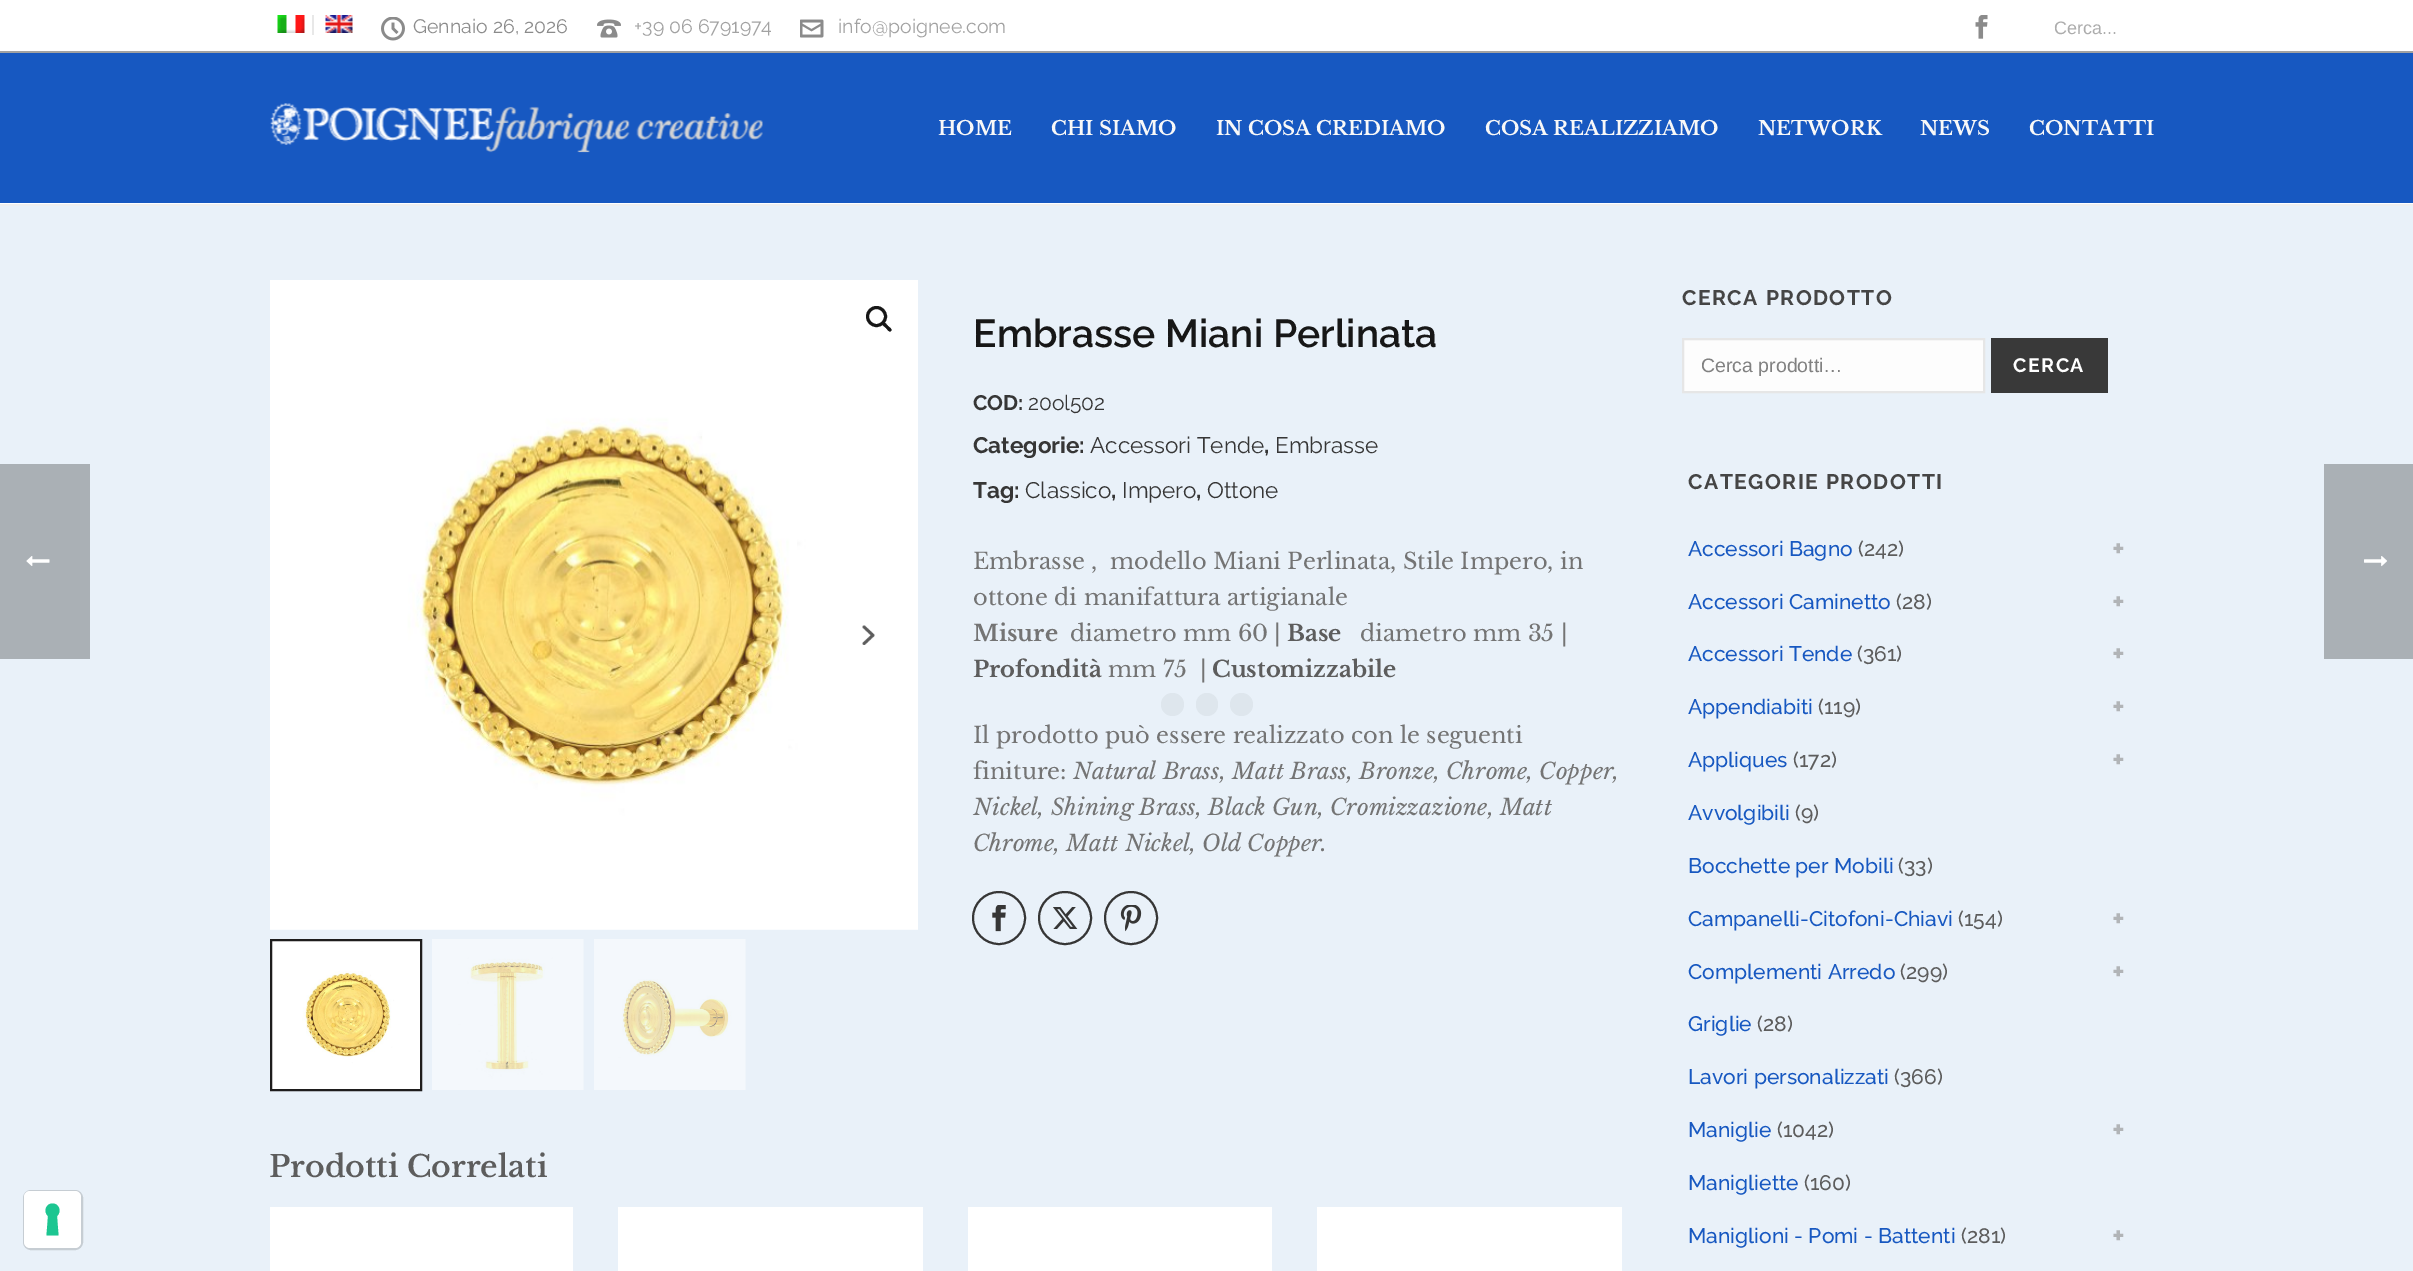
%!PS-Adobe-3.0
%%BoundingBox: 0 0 2413 1271
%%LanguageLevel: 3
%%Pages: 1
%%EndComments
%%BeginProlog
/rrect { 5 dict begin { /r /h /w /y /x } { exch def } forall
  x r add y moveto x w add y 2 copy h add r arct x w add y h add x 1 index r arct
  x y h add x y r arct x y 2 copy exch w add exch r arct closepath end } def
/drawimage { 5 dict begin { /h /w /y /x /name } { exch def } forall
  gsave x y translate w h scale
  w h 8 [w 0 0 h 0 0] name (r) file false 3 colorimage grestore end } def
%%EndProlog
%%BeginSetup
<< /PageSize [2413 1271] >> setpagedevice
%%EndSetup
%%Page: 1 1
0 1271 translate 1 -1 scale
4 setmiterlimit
1 setgray
0 0 2413 1271 rectfill
0.914 0.945 0.976 setrgbcolor
0 206 2413 1065 rectfill
0.667 0.69 0.71 setrgbcolor
0 464 90 195 rectfill
(images/1.raw) 26 556 24 10 drawimage
0.937 setgray
0 204 2413 2 rectfill
0.635 setgray
0 51 2413 2 rectfill
0.91 setgray
312 15 2 20 rectfill
(images/2.raw) 277 15 28 18 drawimage
(images/3.raw) 325 15 28 18 drawimage
(images/4.raw) 381 17 24 24 drawimage
(images/5.raw) 597 19 24 19 drawimage
(images/6.raw) 800 19 24 19 drawimage
(images/7.raw) 1975 15 13 24 drawimage
0.09 0.345 0.757 setrgbcolor
0 53 2413 150 rectfill
(images/8.raw) 270 103 493 50 drawimage
(images/9.raw) 270 280 648 650 drawimage
0.09 setgray
3 setlinewidth
newpath 876.5 316.5 9 0 360 arc closepath stroke
newpath 882.5 323 moveto 884.5 321 887 325 888 326 curveto 889 327 893 329.5 891 331 curveto 889.5 333 887 329 886 328 curveto 885 327 881 324.5 882.5 323 curveto closepath fill
(images/10.raw) 862 625 13 20 drawimage
(images/11.raw) 272 941 148 148 drawimage
0.118 0.114 0.114 setrgbcolor
2 setlinewidth
271 940 150 150 rectstroke
(images/12.raw) 432 939 152 151 drawimage
(images/13.raw) 594 939 152 151 drawimage
0.212 setgray
newpath 999 918 26 0 360 arc closepath stroke
(images/14.raw) 992 905 14 27 drawimage
newpath 1065 918 26 0 360 arc closepath stroke
(images/15.raw) 1053 907 25 22 drawimage
newpath 1131 918 26 0 360 arc closepath stroke
(images/16.raw) 1120 905 22 27 drawimage
1 setgray
270 1207 303 64 rectfill
618 1207 305 64 rectfill
968 1207 304 64 rectfill
1317 1207 305 64 rectfill
0.992 setgray
newpath 1683 339 moveto 1984 339 lineto 1984 392 lineto 1683 392 lineto closepath gsave fill grestore
0.902 setgray
stroke
0.224 setgray
1991 338 117 55 rectfill
0.667 0.69 0.71 setrgbcolor
2324 464 89 195 rectfill
(images/17.raw) 2364 556 23 11 drawimage
0.871 0.902 0.929 setrgbcolor
newpath 1172.5 704.5 11.5 0 360 arc closepath fill
1196 693 22 23 11 rrect fill
newpath 1241.5 704.5 11.5 0 360 arc closepath fill
0.776 0.804 0.827 setrgbcolor
24 1191 58 58 7 rrect stroke
1 setgray
24 1191 57 57 6 rrect fill
0.11 0.776 0.569 setrgbcolor
newpath 52.5 1203.5 moveto 59 1203.5 62 1211.5 57 1216 curveto 58.5 1235.5 lineto 46.5 1235.5 lineto 48 1216 lineto 43 1211.5 46 1203.5 52.5 1203.5 curveto closepath eofill
/Raleway-Regular [19.5 0 0 -19.5 0 0] selectfont
0.545 setgray
413 33 moveto (Gennaio 26, 2026) show
0.635 setgray
634 33 moveto (+39 06 6791974) show
838 33 moveto (info@poignee.com) show
/LiberationSans-Regular [18 0 0 -18 0 0] selectfont
0.678 setgray
2054 34 moveto (Cerca...) show
/LibreBaskerville-Bold [19.5 0 0 -19.5 0 0] selectfont
0.973 setgray
938 135 moveto (HOME) show
1051 135 moveto (CHI SIAMO) show
1216 135 moveto (IN COSA CREDIAMO) show
1485 135 moveto (COSA REALIZZIAMO) show
1758 135 moveto (NETWORK) show
1920 135 moveto (NEWS) show
2029 135 moveto (CONTATTI) show
/Raleway-SemiBold [39 0 0 -39 0 0] selectfont
0.09 setgray
973 347 moveto (Embrasse Miani Perlinata) show
/Raleway-Bold [21 0 0 -21 0 0] selectfont
0.212 setgray
973 410 moveto (COD:) show
/Raleway-Regular [21 0 0 -21 0 0] selectfont
1028 410 moveto (20ol502) show
/Raleway-Bold [22.5 0 0 -22.5 0 0] selectfont
973 453 moveto (Categorie:) show
/Raleway-Regular [22.5 0 0 -22.5 0 0] selectfont
1090 453 moveto (Accessori Tende) show
/Raleway-Bold [22.5 0 0 -22.5 0 0] selectfont
1264 453 moveto (,) show
/Raleway-Regular [22.5 0 0 -22.5 0 0] selectfont
1275 453 moveto (Embrasse) show
/Raleway-Bold [22.5 0 0 -22.5 0 0] selectfont
973 498 moveto (Tag:) show
/Raleway-Regular [22.5 0 0 -22.5 0 0] selectfont
1025 498 moveto (Classico) show
/Raleway-Bold [22.5 0 0 -22.5 0 0] selectfont
1111 498 moveto (,) show
/Raleway-Regular [22.5 0 0 -22.5 0 0] selectfont
1122 498 moveto (Impero) show
/Raleway-Bold [22.5 0 0 -22.5 0 0] selectfont
1196 498 moveto (,) show
/Raleway-Regular [22.5 0 0 -22.5 0 0] selectfont
1207 498 moveto (Ottone) show
/LibreBaskerville-Regular [22.5 0 0 -22.5 0 0] selectfont
0.455 setgray
973 569 moveto (Embrasse ,  modello Miani Perlinata, Stile Impero, in) show
973 605 moveto (ottone di manifattura artigianale) show
/LibreBaskerville-Bold [22.5 0 0 -22.5 0 0] selectfont
973 641 moveto (Misure) show
/LibreBaskerville-Regular [22.5 0 0 -22.5 0 0] selectfont
1070 641 moveto (diametro mm 60 |) show
/LibreBaskerville-Bold [22.5 0 0 -22.5 0 0] selectfont
0.365 setgray
1287 641 moveto (Base) show
/LibreBaskerville-Regular [22.5 0 0 -22.5 0 0] selectfont
0.455 setgray
1360 641 moveto (diametro mm 35 |) show
/LibreBaskerville-Bold [22.5 0 0 -22.5 0 0] selectfont
0.365 setgray
973 677 moveto (Profondità) show
/LibreBaskerville-Regular [22.5 0 0 -22.5 0 0] selectfont
0.455 setgray
1108 677 moveto (mm 75  |) show
/LibreBaskerville-Bold [22.5 0 0 -22.5 0 0] selectfont
0.365 setgray
1212 677 moveto (Customizzabile) show
/LibreBaskerville-Regular [22.5 0 0 -22.5 0 0] selectfont
0.455 setgray
973 743 moveto (Il prodotto può essere realizzato con le seguenti) show
973 779 moveto (finiture:) show
/LibreBaskerville-Italic [22.5 0 0 -22.5 0 0] selectfont
1073 779 moveto (Natural Brass, Matt Brass, Bronze, Chrome, Copper,) show
973 815 moveto (Nickel, Shining Brass, Black Gun, Cromizzazione, Matt) show
973 851 moveto (Chrome, Matt Nickel, Old Copper.) show
/LibreBaskerville-SemiBold [30 0 0 -30 0 0] selectfont
0.365 setgray
269 1177 moveto (Prodotti Correlati) show
/Raleway-Bold [21 0 0 -21 0 0] selectfont
0.271 setgray
1682 305 moveto 1.5 0 (CERCA PRODOTTO) ashow
/LiberationSans-Regular [19.5 0 0 -19.5 0 0] selectfont
0.506 setgray
1701 372 moveto (Cerca prodotti…) show
/Raleway-Bold [19.5 0 0 -19.5 0 0] selectfont
1 setgray
2013 372 moveto 1.5 0 (CERCA) ashow
/Raleway-Bold [21 0 0 -21 0 0] selectfont
0.271 setgray
1688 489 moveto 1.5 0 (CATEGORIE PRODOTTI) ashow
/Raleway-Medium [21 0 0 -21 0 0] selectfont
0.09 0.345 0.757 setrgbcolor
1688 556 moveto (Accessori Bagno) show
0.365 setgray
1858 556 moveto (\(242\)) show
/Raleway-Bold [30 0 0 -30 0 0] selectfont
0.694 0.706 0.718 setrgbcolor
2112 559 moveto (+) show
/Raleway-Medium [21 0 0 -21 0 0] selectfont
0.09 0.345 0.757 setrgbcolor
1688 609 moveto (Accessori Caminetto) show
0.365 setgray
1896 609 moveto (\(28\)) show
/Raleway-Bold [30 0 0 -30 0 0] selectfont
0.694 0.706 0.718 setrgbcolor
2112 612 moveto (+) show
/Raleway-Medium [21 0 0 -21 0 0] selectfont
0.09 0.345 0.757 setrgbcolor
1688 661 moveto (Accessori Tende) show
0.365 setgray
1857 661 moveto (\(361\)) show
/Raleway-Bold [30 0 0 -30 0 0] selectfont
0.694 0.706 0.718 setrgbcolor
2112 664 moveto (+) show
/Raleway-Medium [21 0 0 -21 0 0] selectfont
0.09 0.345 0.757 setrgbcolor
1688 714 moveto (Appendiabiti) show
0.365 setgray
1818 714 moveto (\(119\)) show
/Raleway-Bold [30 0 0 -30 0 0] selectfont
0.694 0.706 0.718 setrgbcolor
2112 717 moveto (+) show
/Raleway-Medium [21 0 0 -21 0 0] selectfont
0.09 0.345 0.757 setrgbcolor
1688 767 moveto (Appliques) show
0.365 setgray
1793 767 moveto (\(172\)) show
/Raleway-Bold [30 0 0 -30 0 0] selectfont
0.694 0.706 0.718 setrgbcolor
2112 770 moveto (+) show
/Raleway-Medium [21 0 0 -21 0 0] selectfont
0.09 0.345 0.757 setrgbcolor
1688 820 moveto (Avvolgibili) show
0.365 setgray
1795 820 moveto (\(9\)) show
0.09 0.345 0.757 setrgbcolor
1688 873 moveto (Bocchette per Mobili) show
0.365 setgray
1898 873 moveto (\(33\)) show
0.09 0.345 0.757 setrgbcolor
1688 926 moveto (Campanelli-Citofoni-Chiavi) show
0.365 setgray
1958 926 moveto (\(154\)) show
/Raleway-Bold [30 0 0 -30 0 0] selectfont
0.694 0.706 0.718 setrgbcolor
2112 929 moveto (+) show
/Raleway-Medium [21 0 0 -21 0 0] selectfont
0.09 0.345 0.757 setrgbcolor
1688 979 moveto (Complementi Arredo) show
0.365 setgray
1900 979 moveto (\(299\)) show
/Raleway-Bold [30 0 0 -30 0 0] selectfont
0.694 0.706 0.718 setrgbcolor
2112 982 moveto (+) show
/Raleway-Medium [21 0 0 -21 0 0] selectfont
0.09 0.345 0.757 setrgbcolor
1688 1031 moveto (Griglie) show
0.365 setgray
1757 1031 moveto (\(28\)) show
0.09 0.345 0.757 setrgbcolor
1688 1084 moveto (Lavori personalizzati) show
0.365 setgray
1894 1084 moveto (\(366\)) show
0.09 0.345 0.757 setrgbcolor
1688 1137 moveto (Maniglie) show
0.365 setgray
1777 1137 moveto (\(1042\)) show
/Raleway-Bold [30 0 0 -30 0 0] selectfont
0.694 0.706 0.718 setrgbcolor
2112 1140 moveto (+) show
/Raleway-Medium [21 0 0 -21 0 0] selectfont
0.09 0.345 0.757 setrgbcolor
1688 1190 moveto (Manigliette) show
0.365 setgray
1804 1190 moveto (\(160\)) show
0.09 0.345 0.757 setrgbcolor
1688 1243 moveto (Maniglioni - Pomi - Battenti) show
0.365 setgray
1961 1243 moveto (\(281\)) show
/Raleway-Bold [30 0 0 -30 0 0] selectfont
0.694 0.706 0.718 setrgbcolor
2112 1246 moveto (+) show
showpage
%%EOF
